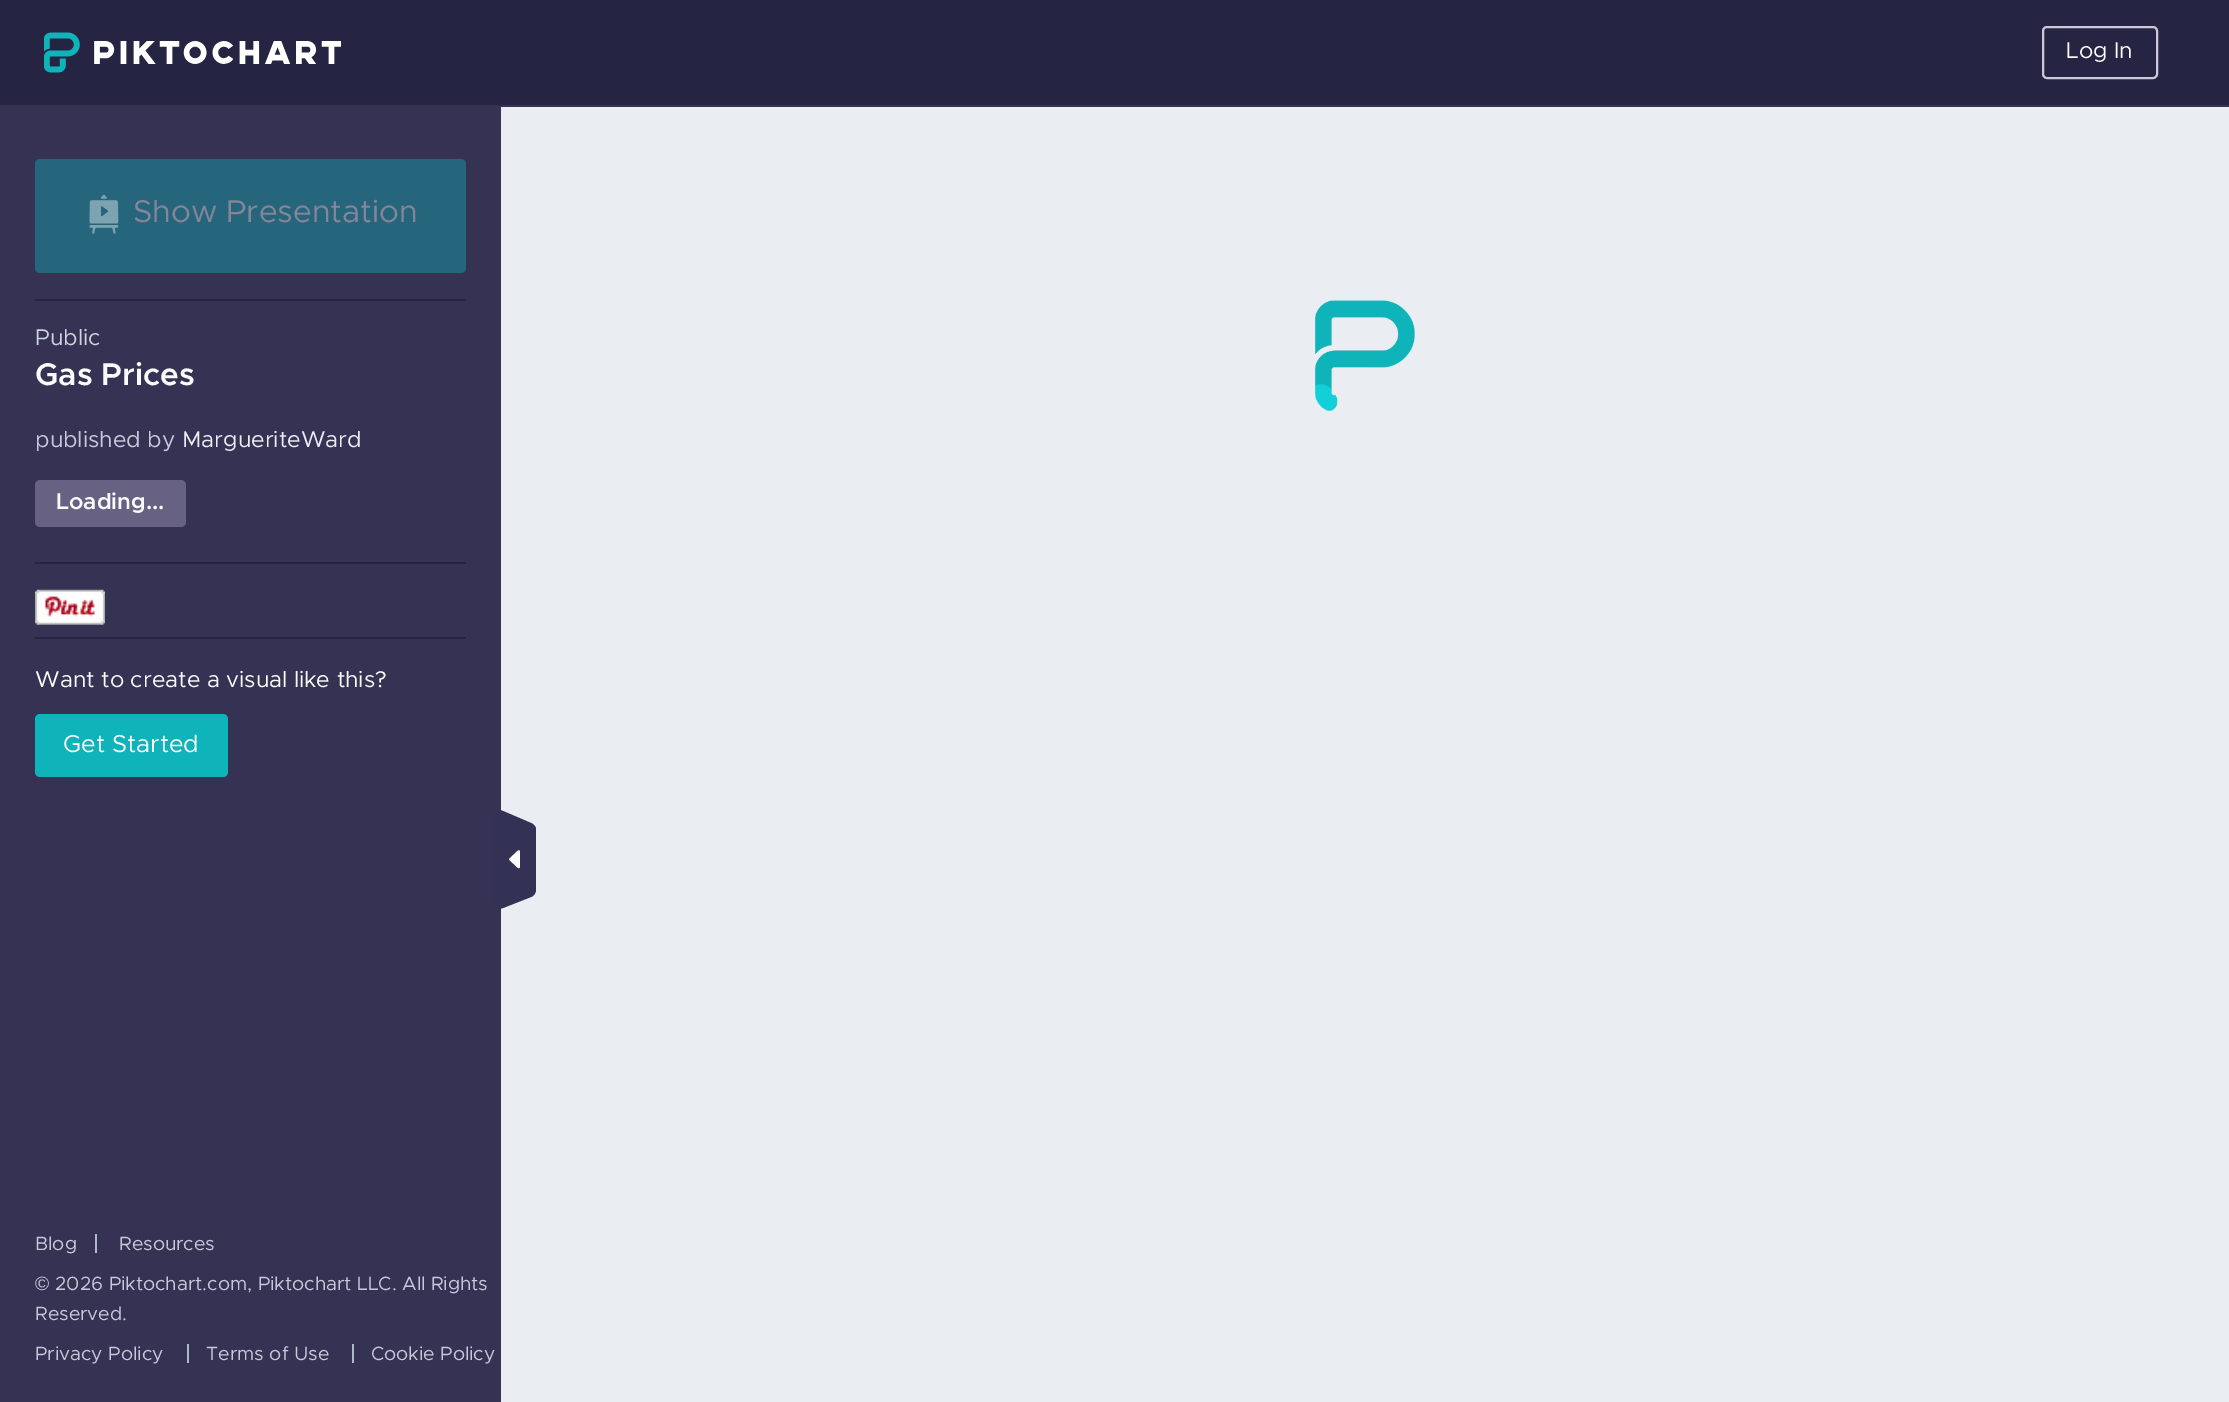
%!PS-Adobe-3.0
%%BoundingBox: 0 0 2229 1402
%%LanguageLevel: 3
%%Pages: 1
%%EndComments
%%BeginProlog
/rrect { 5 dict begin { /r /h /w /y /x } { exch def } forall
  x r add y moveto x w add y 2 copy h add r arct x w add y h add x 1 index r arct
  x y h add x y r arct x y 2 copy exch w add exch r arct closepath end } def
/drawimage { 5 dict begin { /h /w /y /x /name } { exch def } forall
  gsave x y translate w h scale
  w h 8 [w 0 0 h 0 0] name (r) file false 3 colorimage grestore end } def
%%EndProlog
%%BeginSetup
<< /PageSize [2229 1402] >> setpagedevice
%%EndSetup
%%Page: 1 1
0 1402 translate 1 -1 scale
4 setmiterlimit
0.208 0.196 0.329 setrgbcolor
0 0 2229 1402 rectfill
0.145 0.141 0.259 setrgbcolor
0 0 2229 105 rectfill
(images/1.raw) 44 32 297 41 drawimage
0.796 0.78 0.855 setrgbcolor
2 setlinewidth
2043 27 114 51 4 rrect stroke
0.149 0.4 0.49 setrgbcolor
35 159 431 114 5 rrect fill
(images/2.raw) 89 194 30 40 drawimage
0.145 0.141 0.259 setrgbcolor
35 299 431 2 rectfill
35 562 431 2 rectfill
0.404 0.384 0.514 setrgbcolor
35 480 151 47 5 rrect fill
0.145 0.141 0.259 setrgbcolor
35 637 431 2 rectfill
(images/3.raw) 35 589 70 36 drawimage
0.059 0.706 0.733 setrgbcolor
35 714 193 63 5 rrect fill
0.675 0.729 0.784 setrgbcolor
95 1234 2 19 rectfill
187 1344 2 19 rectfill
352 1344 2 19 rectfill
0.918 0.929 0.945 setrgbcolor
501 107 1728 1295 rectfill
(images/4.raw) 1315 300 100 111 drawimage
0.204 0.196 0.329 setrgbcolor
newpath 531 897 moveto 503 908 lineto 499 910 494 906 494 901 curveto 494 817 lineto 494 812 499 809 503 811 curveto 531 823 lineto 534 824 536 827 536 829 curveto 536 890 lineto 536 893 534 896 531 897 curveto closepath fill
1 setgray
newpath 520 851.5 moveto 520 850.5 518.5 850 517.5 851 curveto 509.5 858.5 lineto 509 859 509 859.5 509.5 860 curveto 517.5 867.5 lineto 518.5 868.5 520 868 520 867 curveto closepath fill
/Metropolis-Regular [22.75 0 0 -22.75 0 0] selectfont
0.984 0.984 0.988 setrgbcolor
2066 58 moveto (Log In) show
/Metropolis-Regular [31.5 0 0 -31.5 0 0] selectfont
0.525 0.518 0.596 setrgbcolor
133 222 moveto (Show Presentation) show
/Metropolis-Regular [22.75 0 0 -22.75 0 0] selectfont
0.796 0.831 0.863 setrgbcolor
35 345 moveto (Public) show
/Metropolis-SemiBold [22.75 0 0 -22.75 0 0] selectfont
0.984 0.984 0.988 setrgbcolor
56 509 moveto (Loading...) show
/Metropolis-SemiBold [31.5 0 0 -31.5 0 0] selectfont
35 385 moveto (Gas Prices) show
/Metropolis-Regular [22.75 0 0 -22.75 0 0] selectfont
0.796 0.78 0.855 setrgbcolor
35 447 moveto (published by) show
0.929 0.925 0.949 setrgbcolor
182 447 moveto (MargueriteWard) show
0.984 0.984 0.988 setrgbcolor
35 687 moveto (Want to create a visual like this?) show
/Metropolis-Regular [24.5 0 0 -24.5 0 0] selectfont
63 752 moveto (Get Started) show
/Metropolis-Regular [19.25 0 0 -19.25 0 0] selectfont
0.796 0.78 0.855 setrgbcolor
35 1250 moveto (Blog) show
119 1250 moveto (Resources) show
/LiberationSans-Regular [19.25 0 0 -19.25 0 0] selectfont
35 1290 moveto (©) show
/Metropolis-Regular [19.25 0 0 -19.25 0 0] selectfont
55 1290 moveto (2026 Piktochart.com, Piktochart LLC. All Rights) show
35 1320 moveto (Reserved.) show
35 1360 moveto (Privacy Policy) show
206 1360 moveto (Terms of Use) show
371 1360 moveto (Cookie Policy) show
showpage
%%EOF
